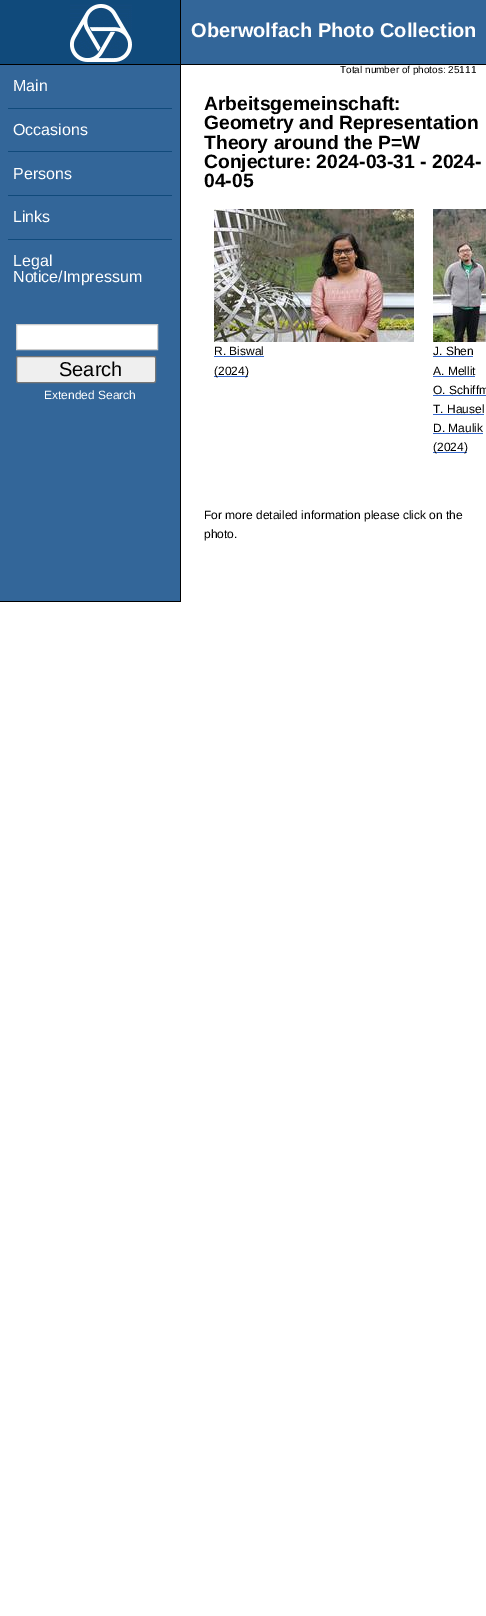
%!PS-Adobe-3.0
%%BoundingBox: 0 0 486 1616
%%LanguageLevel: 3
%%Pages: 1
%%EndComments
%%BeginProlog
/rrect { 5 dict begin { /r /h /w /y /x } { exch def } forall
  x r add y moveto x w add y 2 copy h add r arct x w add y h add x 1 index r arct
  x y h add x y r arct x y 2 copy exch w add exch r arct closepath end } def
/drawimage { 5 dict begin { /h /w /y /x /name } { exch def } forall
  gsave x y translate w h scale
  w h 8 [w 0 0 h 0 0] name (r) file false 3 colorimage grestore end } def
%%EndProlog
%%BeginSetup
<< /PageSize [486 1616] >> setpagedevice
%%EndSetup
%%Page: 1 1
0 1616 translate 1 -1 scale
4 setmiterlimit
1 setgray
0 0 486 1616 rectfill
0.2 0.4 0.6 setrgbcolor
181 0 305 64 rectfill
0 setgray
0 64 486 1 rectfill
0.063 0.29 0.482 setrgbcolor
0 0 180 64 rectfill
0 setgray
180 0 1 64 rectfill
(images/1.raw) 70 4 62 58 drawimage
0.2 0.4 0.6 setrgbcolor
0 65 180 536 rectfill
0 setgray
180 65 1 537 rectfill
0 601 181 1 rectfill
0.063 0.29 0.482 setrgbcolor
8 108 164 1 rectfill
8 151 164 1 rectfill
8 195 164 1 rectfill
8 239 164 1 rectfill
1 setgray
newpath 16.5 324.5 moveto 157.5 324.5 lineto 157.5 349.5 lineto 16.5 349.5 lineto closepath gsave fill grestore
0.8 setgray
stroke
0.937 setgray
16.5 356.5 139 26 1.5 rrect gsave fill grestore
0.463 setgray
stroke
(images/2.raw) 214 209 200 133 drawimage
0.2 0.4 0.8 setrgbcolor
214 356 50 1 rectfill
214 376 34 1 rectfill
(images/3.raw) 433 209 53 133 drawimage
433 356 40 1 rectfill
433 376 42 1 rectfill
433 395 53 1 rectfill
433 414 51 1 rectfill
433 433 50 1 rectfill
433 452 34 1 rectfill
/LiberationSans-Bold [20 0 0 -20 0 0] selectfont
1 setgray
191 37 moveto (Oberwolfach Photo Collection) show
/LiberationSans-Regular [10 0 0 -10 0 0] selectfont
0 setgray
340 73 moveto (Total number of photos: 25111) show
/LiberationSans-Regular [16 0 0 -16 0 0] selectfont
1 setgray
13 91 moveto (Main) show
13 135 moveto (Occasions) show
13 179 moveto (Persons) show
13 222 moveto (Links) show
13 266 moveto (Legal) show
13 282 moveto (Notice/Impressum) show
/LiberationSans-Regular [20 0 0 -20 0 0] selectfont
0 setgray
59 376 moveto (Search) show
/LiberationSans-Regular [12 0 0 -12 0 0] selectfont
1 setgray
44 399 moveto (Extended Search) show
/LiberationSans-Bold [19.25 0 0 -19.25 0 0] selectfont
0 setgray
204 110 moveto (Arbeitsgemeinschaft:) show
204 129 moveto (Geometry and Representation) show
204 149 moveto (Theory around the P=W) show
204 168 moveto (Conjecture: 2024-03-31 - 2024-) show
204 187 moveto (04-05) show
/LiberationSans-Regular [12 0 0 -12 0 0] selectfont
214 355 moveto (R. Biswal) show
214 375 moveto (\(2024\)) show
433 355 moveto (J. Shen) show
433 375 moveto (A. Mellit) show
433 394 moveto (O. Schiffm) show
433 413 moveto (T. Hausel) show
433 432 moveto (D. Maulik) show
433 451 moveto (\(2024\)) show
204 519 moveto (For more detailed information please click on the) show
204 538 moveto (photo.) show
showpage
%%EOF
